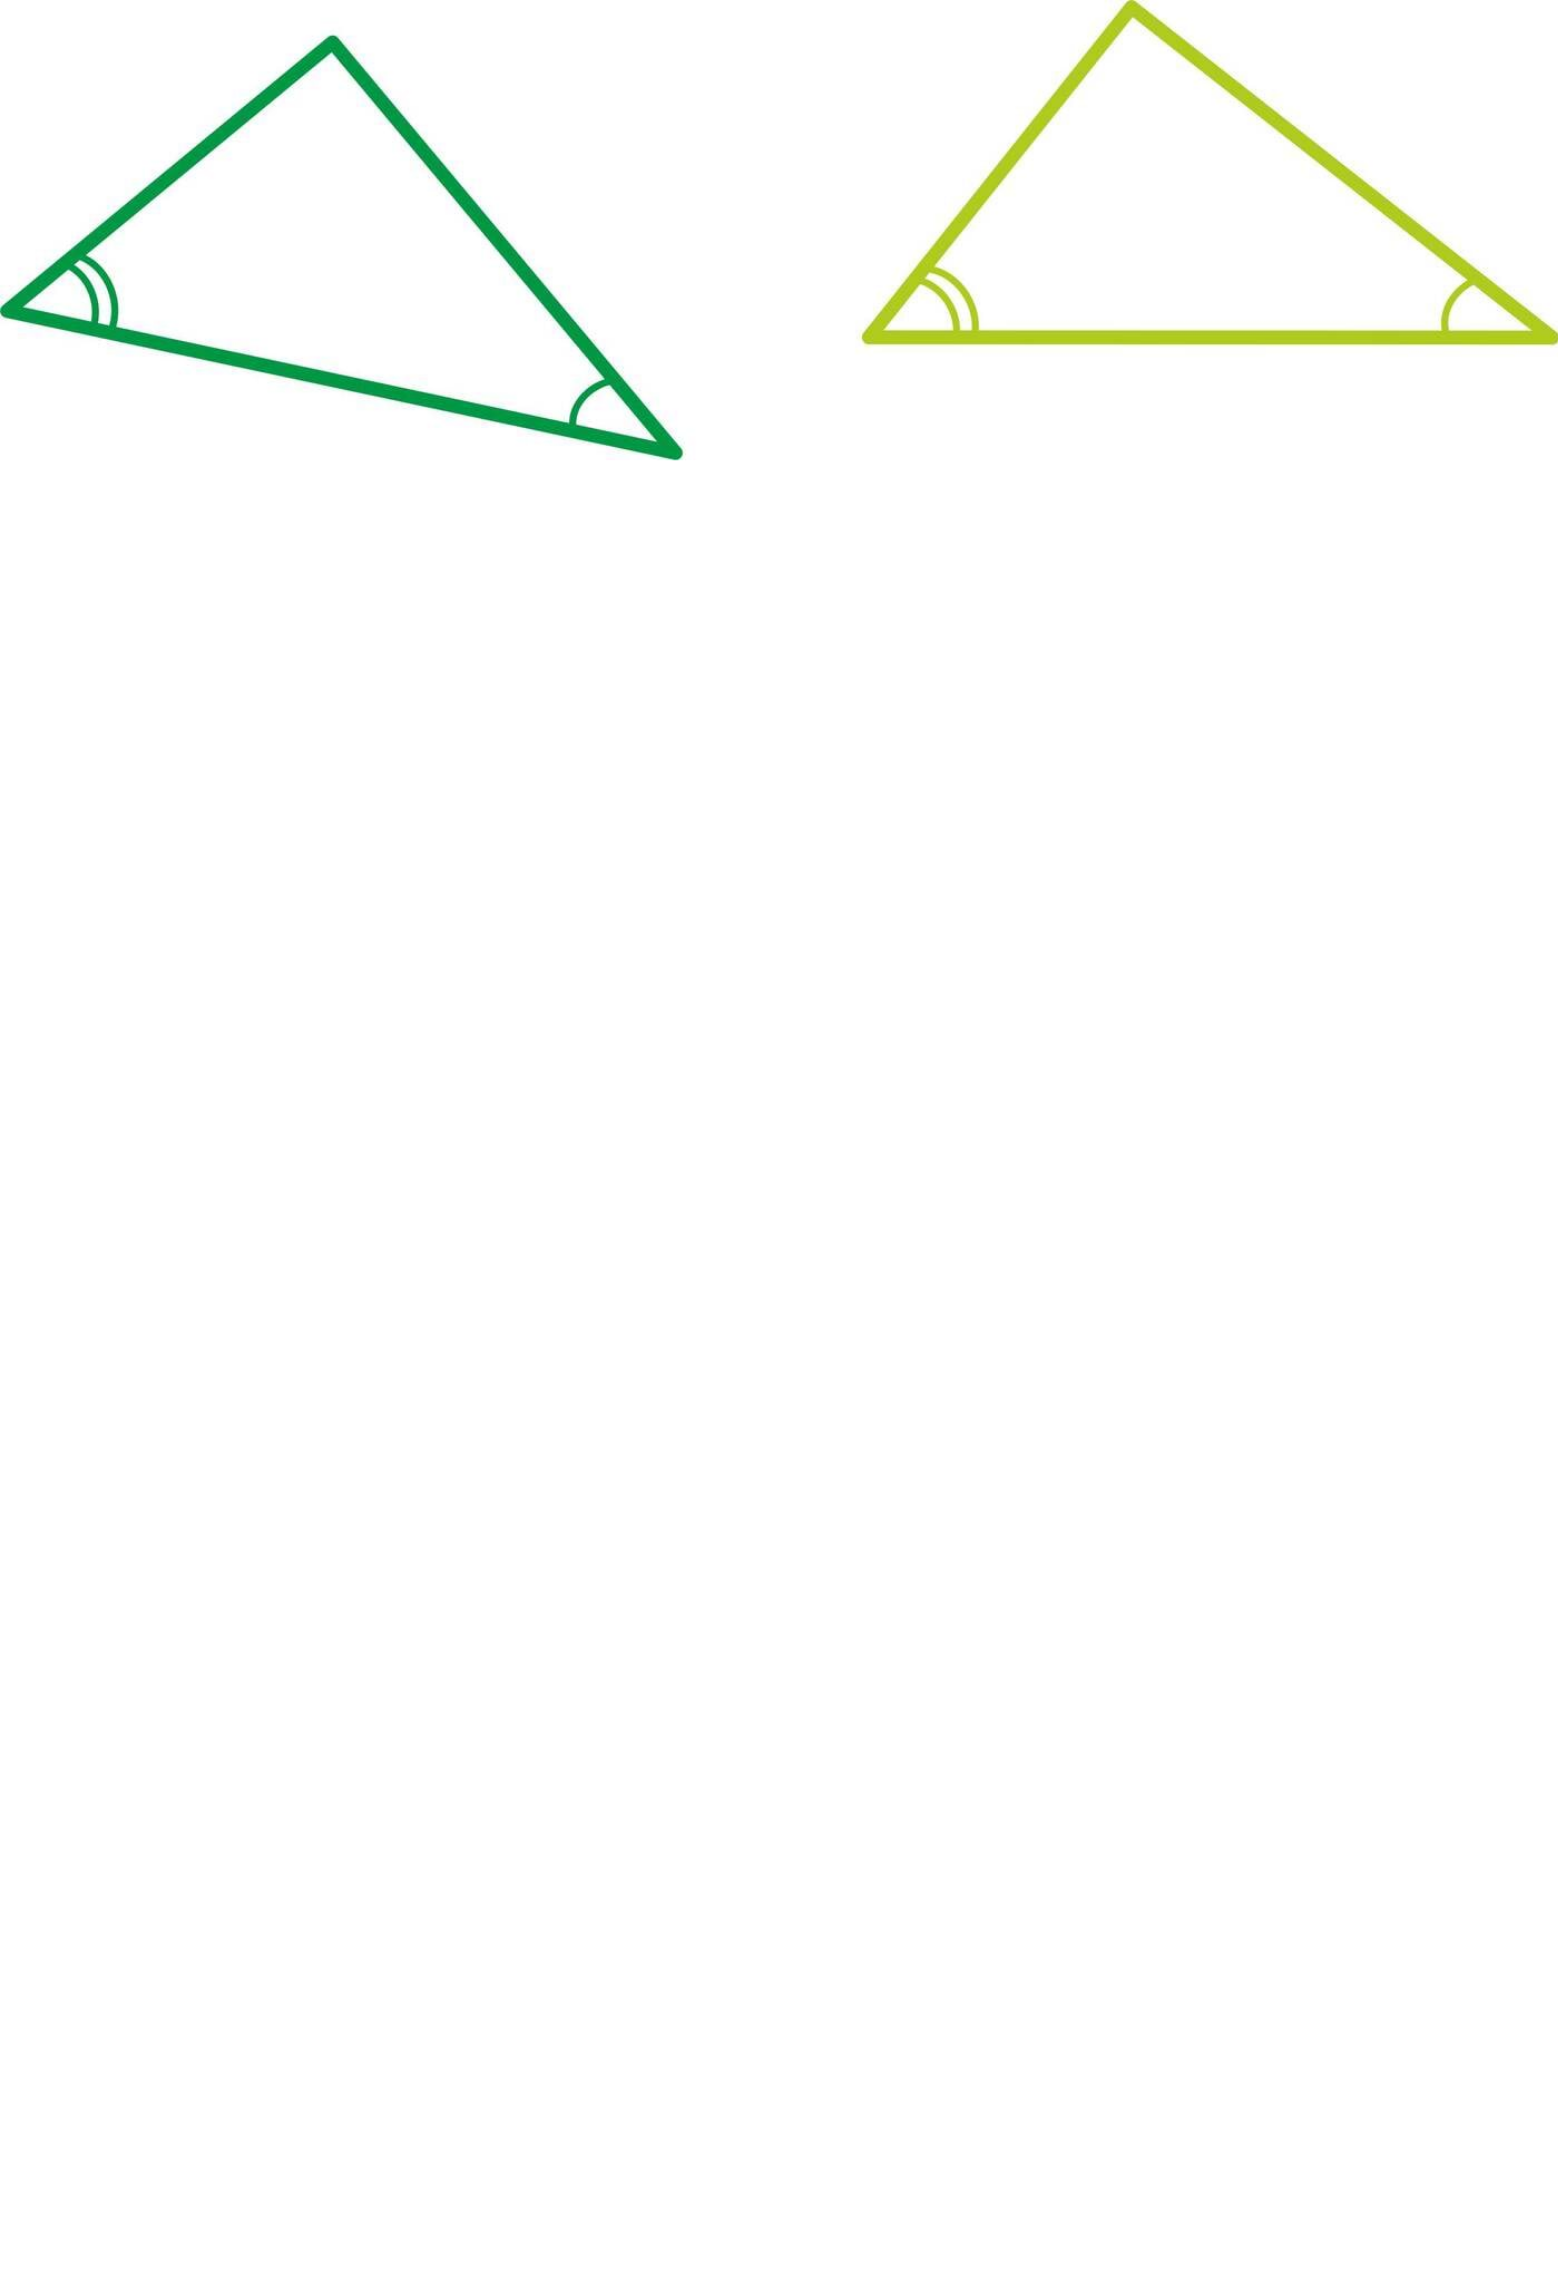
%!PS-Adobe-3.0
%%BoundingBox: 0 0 1558 2279
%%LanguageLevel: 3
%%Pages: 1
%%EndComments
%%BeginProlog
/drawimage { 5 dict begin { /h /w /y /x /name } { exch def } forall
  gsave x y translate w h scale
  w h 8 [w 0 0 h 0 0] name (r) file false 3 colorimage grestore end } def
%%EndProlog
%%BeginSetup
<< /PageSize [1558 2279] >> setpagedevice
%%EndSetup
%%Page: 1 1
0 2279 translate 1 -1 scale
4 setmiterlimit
1 setgray
0 0 1558 2279 rectfill
(images/1.raw) 0 0 1558 461 drawimage
showpage
%%EOF
